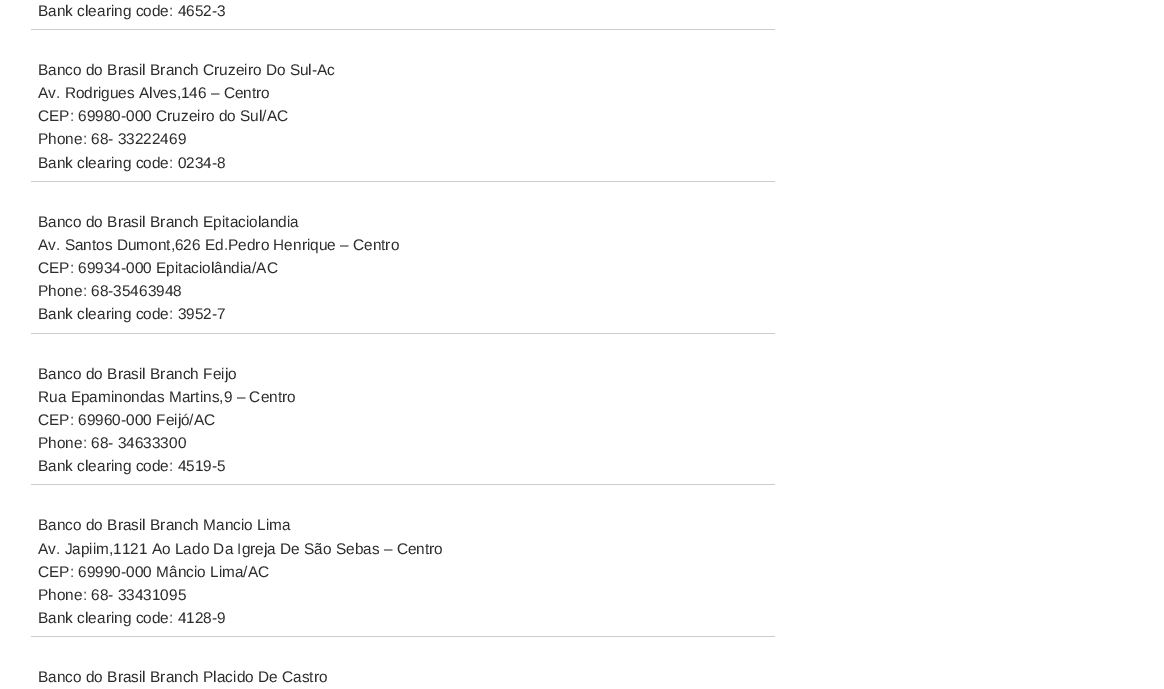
%!PS-Adobe-3.0
%%BoundingBox: 0 0 1164 689
%%LanguageLevel: 3
%%Pages: 1
%%EndComments
%%BeginProlog
%%EndProlog
%%BeginSetup
<< /PageSize [1164 689] >> setpagedevice
%%EndSetup
%%Page: 1 1
0 689 translate 1 -1 scale
4 setmiterlimit
1 setgray
0 0 1164 689 rectfill
0.8 setgray
31 29 744 1 rectfill
31 181 744 1 rectfill
31 333 744 1 rectfill
31 484 744 1 rectfill
31 636 744 1 rectfill
/LiberationSans-Regular [15.4 0 0 -15.4 0 0] selectfont
0.176 setgray
38 16 moveto (Bank clearing code: 4652-3) show
38 75 moveto (Banco do Brasil Branch Cruzeiro Do Sul-Ac) show
38 98 moveto (Av. Rodrigues Alves,146 – Centro) show
38 121 moveto (CEP: 69980-000 Cruzeiro do Sul/AC) show
38 144 moveto (Phone: 68- 33222469) show
38 168 moveto (Bank clearing code: 0234-8) show
38 227 moveto (Banco do Brasil Branch Epitaciolandia) show
38 250 moveto (Av. Santos Dumont,626 Ed.Pedro Henrique – Centro) show
38 273 moveto (CEP: 69934-000 Epitaciolândia/AC) show
38 296 moveto (Phone: 68-35463948) show
38 319 moveto (Bank clearing code: 3952-7) show
38 379 moveto (Banco do Brasil Branch Feijo) show
38 402 moveto (Rua Epaminondas Martins,9 – Centro) show
38 425 moveto (CEP: 69960-000 Feijó/AC) show
38 448 moveto (Phone: 68- 34633300) show
38 471 moveto (Bank clearing code: 4519-5) show
38 530 moveto (Banco do Brasil Branch Mancio Lima) show
38 554 moveto (Av. Japiim,1121 Ao Lado Da Igreja De São Sebas – Centro) show
38 577 moveto (CEP: 69990-000 Mâncio Lima/AC) show
38 600 moveto (Phone: 68- 33431095) show
38 623 moveto (Bank clearing code: 4128-9) show
38 682 moveto (Banco do Brasil Branch Placido De Castro) show
showpage
%%EOF
